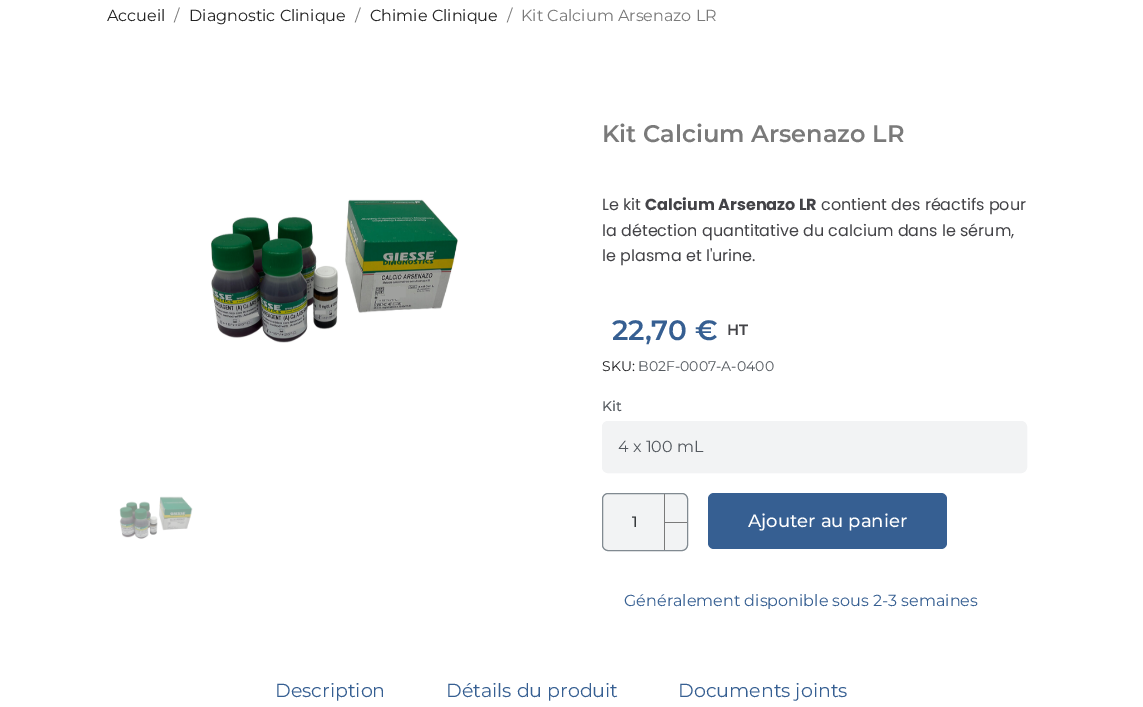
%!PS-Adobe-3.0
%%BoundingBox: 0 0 1143 707
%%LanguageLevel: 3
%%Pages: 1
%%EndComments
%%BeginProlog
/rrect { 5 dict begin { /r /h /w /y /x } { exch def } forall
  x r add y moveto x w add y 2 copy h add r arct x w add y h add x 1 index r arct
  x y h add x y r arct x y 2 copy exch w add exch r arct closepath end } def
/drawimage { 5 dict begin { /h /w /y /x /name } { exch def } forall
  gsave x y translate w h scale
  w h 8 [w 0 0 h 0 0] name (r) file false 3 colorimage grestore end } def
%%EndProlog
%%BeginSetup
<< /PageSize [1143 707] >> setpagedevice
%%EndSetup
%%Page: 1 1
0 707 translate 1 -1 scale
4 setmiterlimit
1 setgray
0 0 1143 707 rectfill
(images/1.raw) 211 199 247 144 drawimage
(images/2.raw) 119 496 74 43 drawimage
0.949 0.953 0.957 setrgbcolor
603 422 423 50 5 rrect gsave fill grestore
2 setlinewidth
stroke
602.5 493.5 85 57 5.5 rrect gsave fill grestore
0.506 0.541 0.569 setrgbcolor
1 setlinewidth
stroke
0.478 setgray
664 522 23 1 rectfill
664 494 1 56 rectfill
0.212 0.373 0.573 setrgbcolor
708 493 239 56 6 rrect fill
/Montserrat-Regular [16 0 0 -16 0 0] selectfont
0.137 setgray
107 21 moveto (Accueil) show
0.478 setgray
174 21 moveto (/) show
0.137 setgray
189 21 moveto (Diagnostic Clinique) show
0.478 setgray
355 21 moveto (/) show
0.137 setgray
370 21 moveto (Chimie Clinique) show
0.478 setgray
507 21 moveto (/) show
521 21 moveto (Kit Calcium Arsenazo LR) show
/Montserrat-SemiBold [24 0 0 -24 0 0] selectfont
602 142 moveto (Kit Calcium Arsenazo LR) show
/Poppins-Regular [16 0 0 -16 0 0] selectfont
0.263 0.263 0.278 setrgbcolor
602 210 moveto (Le kit) show
/Poppins-Bold [16 0 0 -16 0 0] selectfont
645 210 moveto (Calcium Arsenazo LR) show
/Poppins-Regular [16 0 0 -16 0 0] selectfont
821 210 moveto (contient des réactifs pour) show
602 236 moveto (la détection quantitative du calcium dans le sérum,) show
602 261 moveto (le plasma et l'urine.) show
/Montserrat-SemiBold [28 0 0 -28 0 0] selectfont
0.212 0.373 0.573 setrgbcolor
612 340 moveto (22,70 €) show
/Montserrat-SemiBold [15 0 0 -15 0 0] selectfont
0.263 0.263 0.278 setrgbcolor
727 335 moveto (HT) show
/Montserrat-Regular [14 0 0 -14 0 0] selectfont
0.114 0.114 0.122 setrgbcolor
602 371 moveto (SKU:) show
0.329 0.349 0.373 setrgbcolor
638 371 moveto (B02F-0007-A-0400) show
/Montserrat-Medium [14 0 0 -14 0 0] selectfont
602 411 moveto (Kit) show
/Montserrat-Regular [16 0 0 -16 0 0] selectfont
618 452 moveto (4 x 100 mL) show
/Montserrat-Medium [15 0 0 -15 0 0] selectfont
0.216 0.227 0.235 setrgbcolor
632 527 moveto (1) show
/Montserrat-Medium [18 0 0 -18 0 0] selectfont
1 setgray
748 527 moveto (Ajouter au panier) show
/Montserrat-Regular [16 0 0 -16 0 0] selectfont
0.212 0.373 0.573 setrgbcolor
624 606 moveto (Généralement disponible sous 2-3 semaines) show
/Montserrat-Regular [19 0 0 -19 0 0] selectfont
275 697 moveto (Description) show
446 697 moveto (Détails du produit) show
678 697 moveto (Documents joints) show
showpage
%%EOF
